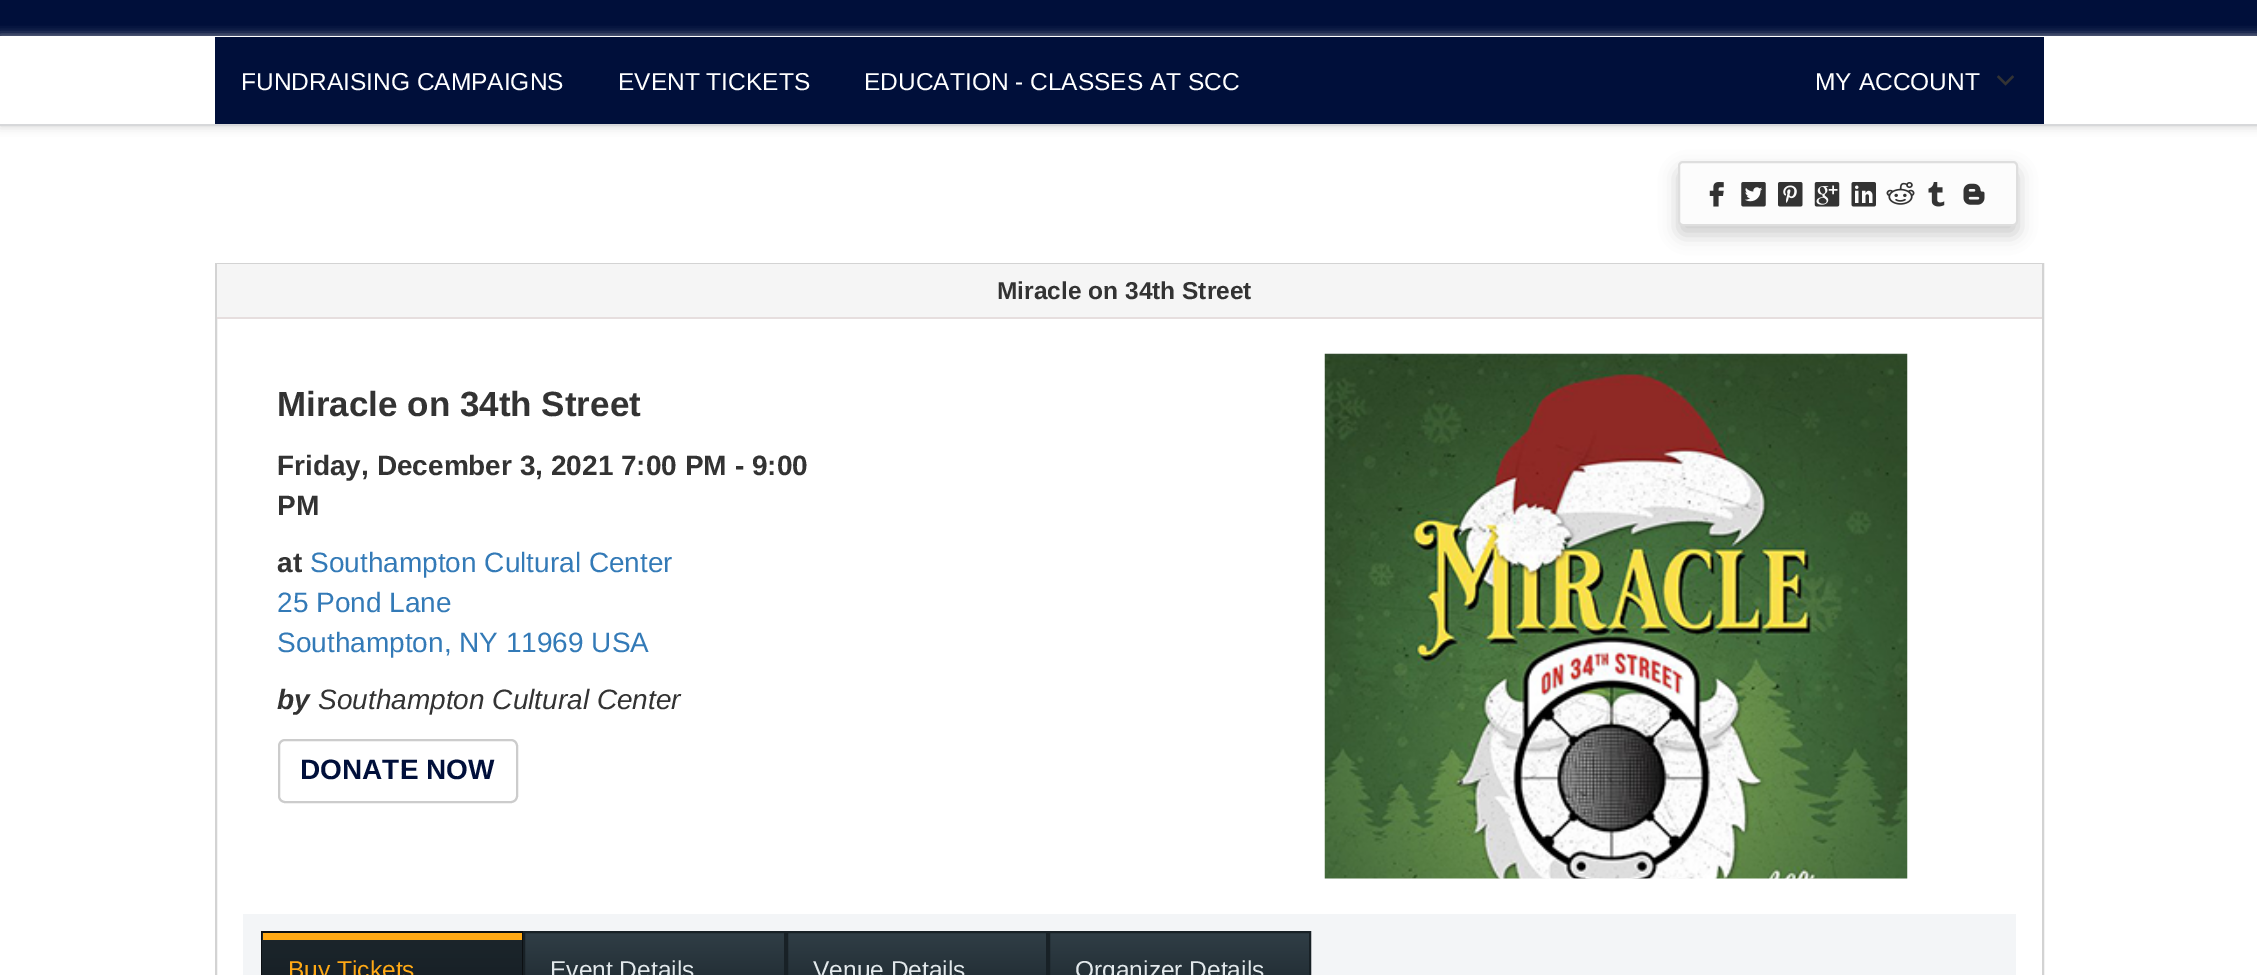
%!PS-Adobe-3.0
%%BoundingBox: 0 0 2257 975
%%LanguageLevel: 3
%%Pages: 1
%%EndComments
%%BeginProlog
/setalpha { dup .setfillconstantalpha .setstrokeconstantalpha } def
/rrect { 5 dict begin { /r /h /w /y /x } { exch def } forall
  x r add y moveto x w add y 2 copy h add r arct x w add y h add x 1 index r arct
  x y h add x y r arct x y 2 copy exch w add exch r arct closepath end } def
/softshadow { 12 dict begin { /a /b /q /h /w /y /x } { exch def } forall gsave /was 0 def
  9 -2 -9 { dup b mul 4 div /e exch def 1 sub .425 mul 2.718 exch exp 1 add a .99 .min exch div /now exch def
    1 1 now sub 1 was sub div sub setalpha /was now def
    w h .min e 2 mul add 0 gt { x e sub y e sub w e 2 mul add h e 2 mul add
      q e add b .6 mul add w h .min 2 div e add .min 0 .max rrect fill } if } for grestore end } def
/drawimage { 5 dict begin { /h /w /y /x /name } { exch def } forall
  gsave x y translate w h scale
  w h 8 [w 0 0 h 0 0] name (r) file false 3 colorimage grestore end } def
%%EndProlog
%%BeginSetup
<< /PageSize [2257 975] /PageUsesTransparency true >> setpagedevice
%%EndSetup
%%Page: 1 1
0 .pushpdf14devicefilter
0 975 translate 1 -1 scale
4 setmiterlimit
1 setgray
0 0 2257 975 rectfill
0 0.059 0.227 setrgbcolor
0 0 2257 36 rectfill
0.8 setgray
0 37 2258 89 0 5 1 softshadow
1 setgray
0 36 2257 88 rectfill
0.843 0.847 0.855 setrgbcolor
0 124 2257 2 rectfill
0 0.059 0.227 setrgbcolor
215 37 1829 87 rectfill
(images/1.raw) 1997 75 17 11 drawimage
0 setgray
1678 170 340 65 5 9 0.2 softshadow
0.988 setgray
1679 162 338 63 4 rrect gsave fill grestore
0.871 setgray
2 setlinewidth
stroke
(images/2.raw) 1709 182 15 25 drawimage
(images/3.raw) 1741 182 25 25 drawimage
(images/4.raw) 1778 182 25 25 drawimage
(images/5.raw) 1814 182 26 25 drawimage
(images/6.raw) 1851 182 25 25 drawimage
(images/7.raw) 1886 182 29 23 drawimage
(images/8.raw) 1928 182 17 25 drawimage
(images/9.raw) 1963 183 22 22 drawimage
0.827 setgray
216 264 1827 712 rectstroke
0.961 setgray
217 264 1825 53 rectfill
0.902 0.871 0.871 setrgbcolor
217 317 1825 2 rectfill
0.8 setgray
279 740 238 62 6 rrect stroke
(images/10.raw) 1324 353 584 526 drawimage
0.953 0.961 0.969 setrgbcolor
243 914 1773 61 rectfill
gsave newpath 262 933 moveto 522 933 lineto 522 975 lineto 262 975 lineto closepath clip newpath
<< /ShadingType 2 /ColorSpace /DeviceRGB /Coords [392 933 392 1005] /Extend [true true] /Function << /FunctionType 2 /Domain [0 1] /C0 [0.11 0.149 0.173] /C1 [0.086 0.118 0.137] /N 1 >> >> shfill grestore
0.047 0.063 0.075 setrgbcolor
261 931 262 2 rectfill
newpath 523 931 moveto 523 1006 lineto 522 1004 lineto 522 933 lineto closepath fill
newpath 261 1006 moveto 261 931 lineto 262 933 lineto 262 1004 lineto closepath fill
1 0.663 0.082 setrgbcolor
263 933 259 7 rectfill
gsave newpath 525 933 moveto 784 933 lineto 784 975 lineto 525 975 lineto closepath clip newpath
<< /ShadingType 2 /ColorSpace /DeviceRGB /Coords [655 933 655 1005] /Extend [true true] /Function << /FunctionType 2 /Domain [0 1] /C0 [0.188 0.243 0.275] /C1 [0.11 0.149 0.173] /N 1 >> >> shfill grestore
0.094 0.129 0.149 setrgbcolor
524 932 261 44 rectstroke
gsave newpath 788 933 moveto 1046 933 lineto 1046 975 lineto 788 975 lineto closepath clip newpath
<< /ShadingType 2 /ColorSpace /DeviceRGB /Coords [917 933 917 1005] /Extend [true true] /Function << /FunctionType 2 /Domain [0 1] /C0 [0.188 0.243 0.275] /C1 [0.11 0.149 0.173] /N 1 >> >> shfill grestore
787 932 260 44 rectstroke
gsave newpath 1050 933 moveto 1309 933 lineto 1309 975 lineto 1050 975 lineto closepath clip newpath
<< /ShadingType 2 /ColorSpace /DeviceRGB /Coords [1180 933 1180 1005] /Extend [true true] /Function << /FunctionType 2 /Domain [0 1] /C0 [0.188 0.243 0.275] /C1 [0.11 0.149 0.173] /N 1 >> >> shfill grestore
1049 932 261 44 rectstroke
/LiberationSans-Regular [24.5 0 0 -24.5 0 0] selectfont
1 setgray
241 90 moveto (FUNDRAISING CAMPAIGNS) show
618 90 moveto (EVENT TICKETS) show
864 90 moveto (EDUCATION - CLASSES AT SCC) show
1815 90 moveto (MY ACCOUNT) show
/LiberationSans-Bold [24.5 0 0 -24.5 0 0] selectfont
0.2 setgray
997 299 moveto (Miracle on 34th Street) show
/LiberationSans-Bold [35 0 0 -35 0 0] selectfont
277 416 moveto (Miracle on 34th Street) show
/LiberationSans-Bold [28 0 0 -28 0 0] selectfont
277 475 moveto (Friday, December 3, 2021 7:00 PM - 9:00) show
277 515 moveto (PM) show
277 572 moveto (at) show
/LiberationSans-Regular [28 0 0 -28 0 0] selectfont
0.2 0.478 0.718 setrgbcolor
310 572 moveto (Southampton Cultural Center) show
277 612 moveto (25 Pond Lane) show
277 652 moveto (Southampton, NY 11969 USA) show
/LiberationSans-BoldItalic [28 0 0 -28 0 0] selectfont
0.2 setgray
277 709 moveto (by) show
/LiberationSans-Italic [28 0 0 -28 0 0] selectfont
318 709 moveto (Southampton Cultural Center) show
/LiberationSans-Bold [28 0 0 -28 0 0] selectfont
0 0.059 0.227 setrgbcolor
300 779 moveto (DONATE NOW) show
/LiberationSans-Regular [24.5 0 0 -24.5 0 0] selectfont
1 0.663 0.082 setrgbcolor
288 978 moveto (Buy Tickets) show
0.886 0.91 0.922 setrgbcolor
550 978 moveto (Event Details) show
813 978 moveto (Venue Details) show
1075 978 moveto (Organizer Details) show
.poppdf14devicefilter showpage
%%EOF
